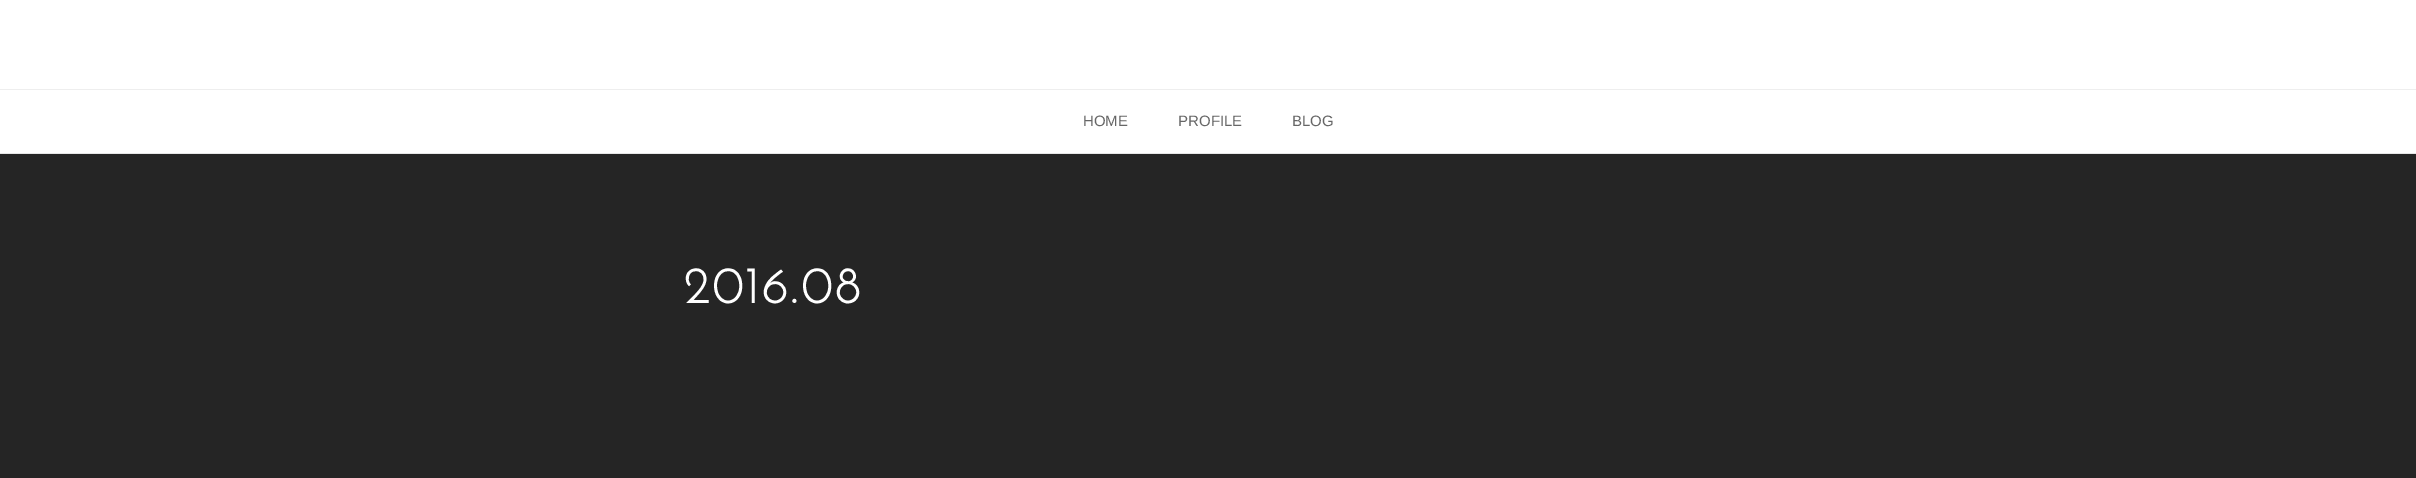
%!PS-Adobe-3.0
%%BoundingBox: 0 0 2416 478
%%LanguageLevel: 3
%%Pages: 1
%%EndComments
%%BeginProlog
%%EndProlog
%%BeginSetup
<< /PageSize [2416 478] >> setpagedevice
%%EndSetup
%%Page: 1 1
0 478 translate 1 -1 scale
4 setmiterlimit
0.145 setgray
0 0 2416 478 rectfill
1 setgray
0 0 2416 89 rectfill
0.933 setgray
0 89 2416 1 rectfill
1 setgray
0 90 2416 63 rectfill
0.902 setgray
0 153 2416 1 rectfill
/LiberationSans-Regular [15 0 0 -15 0 0] selectfont
0.4 setgray
1083 126 moveto (HOME) show
1178 126 moveto (PROFILE) show
1292 126 moveto (BLOG) show
/JosefinSans-Regular [52.5 0 0 -52.5 0 0] selectfont
1 setgray
683 303 moveto (2016.08) show
showpage
%%EOF
